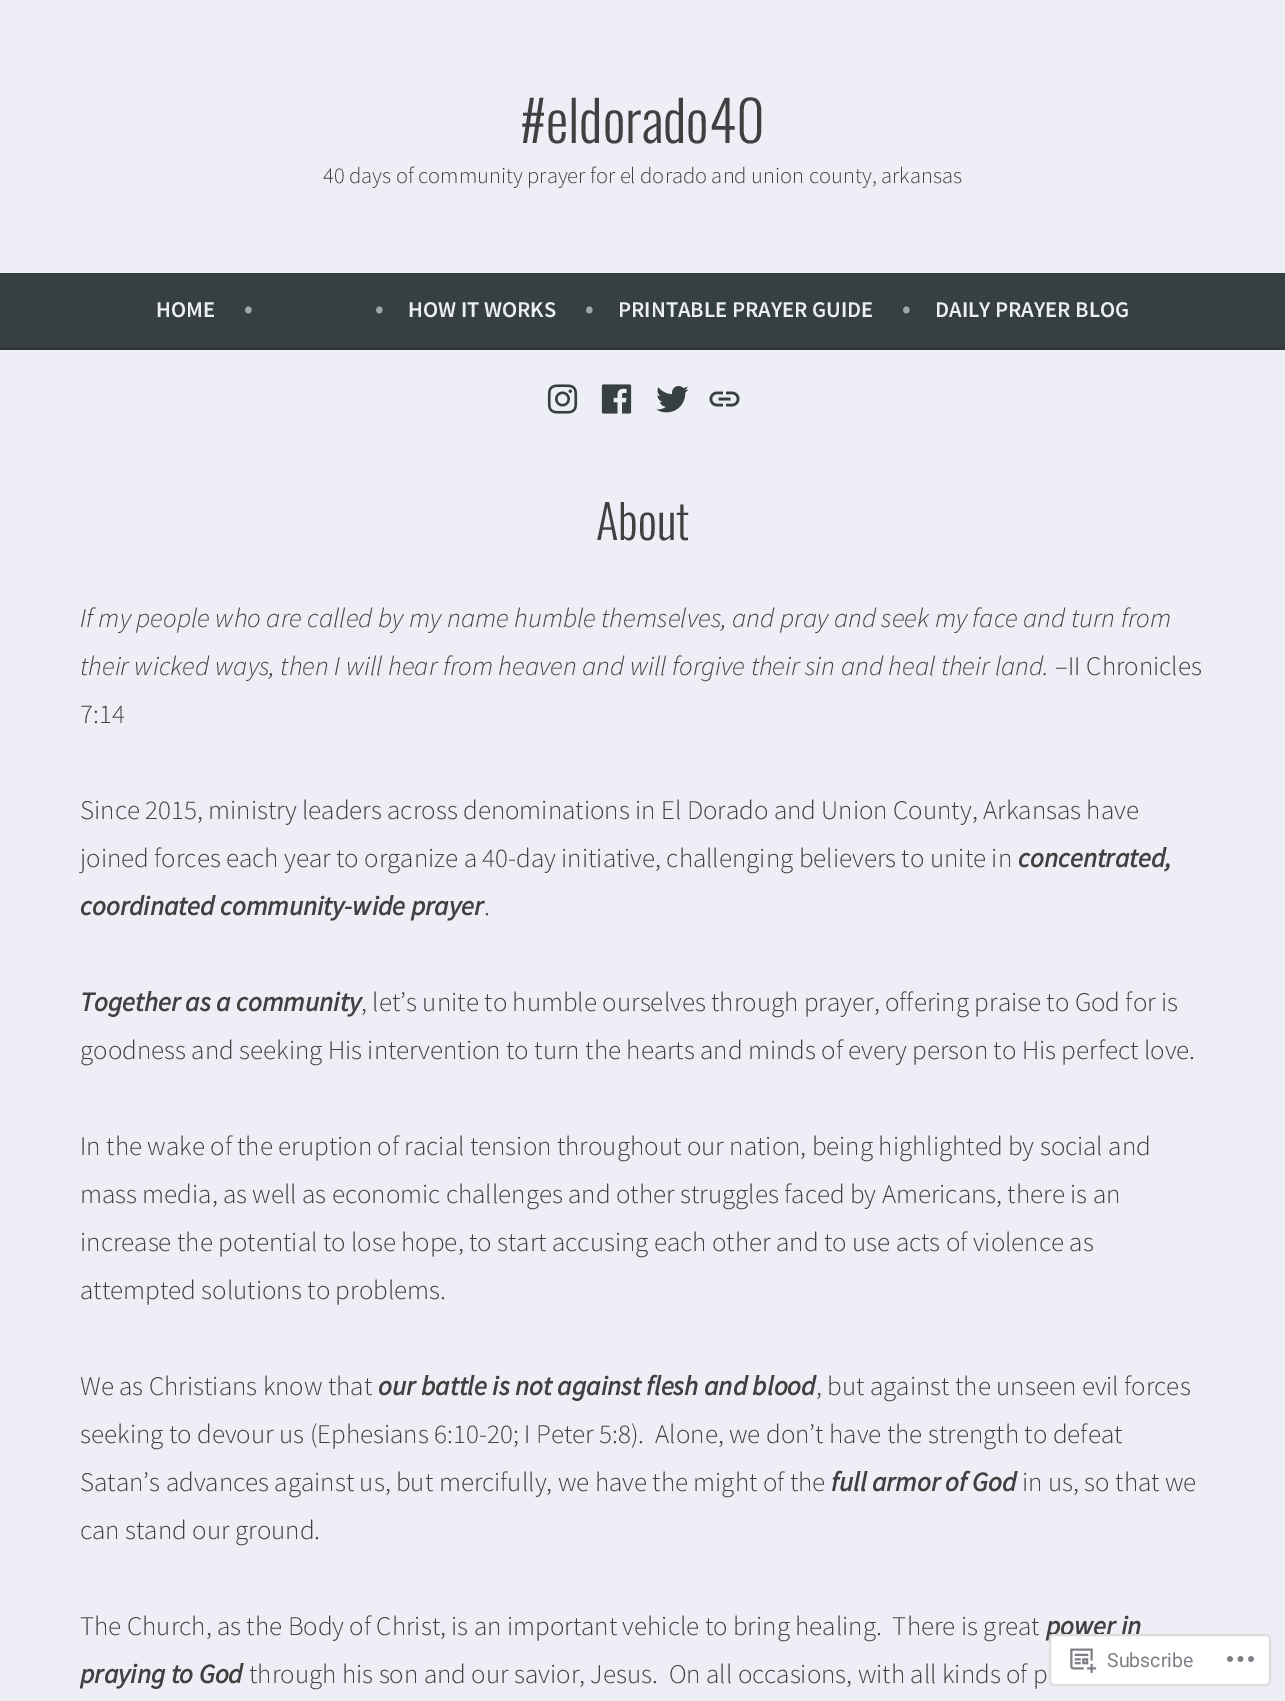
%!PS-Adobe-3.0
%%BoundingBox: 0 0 1285 1701
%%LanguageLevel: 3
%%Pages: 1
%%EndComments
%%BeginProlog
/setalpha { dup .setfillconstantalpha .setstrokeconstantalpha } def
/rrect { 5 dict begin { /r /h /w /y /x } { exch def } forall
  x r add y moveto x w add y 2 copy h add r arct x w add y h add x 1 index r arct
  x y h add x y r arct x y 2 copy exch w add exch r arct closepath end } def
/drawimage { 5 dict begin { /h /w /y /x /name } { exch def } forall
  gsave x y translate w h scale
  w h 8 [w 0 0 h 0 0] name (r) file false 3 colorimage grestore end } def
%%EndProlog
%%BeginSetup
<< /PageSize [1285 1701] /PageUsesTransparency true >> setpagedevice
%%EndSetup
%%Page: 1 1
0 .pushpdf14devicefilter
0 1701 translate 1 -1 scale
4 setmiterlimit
0.933 0.937 0.965 setrgbcolor
0 0 1285 1701 rectfill
0.212 0.251 0.263 setrgbcolor
0 273 1285 74 rectfill
0.18 0.212 0.224 setrgbcolor
0 347 1285 3 rectfill
(images/1.raw) 547 384 31 30 drawimage
(images/2.raw) 601 384 31 30 drawimage
(images/3.raw) 656 386 33 27 drawimage
(images/4.raw) 709 391 31 16 drawimage
/Oswald-Light [56 0 0 -56 0 0] selectfont
0.251 setgray
520 143 moveto (#eldorado40) show
/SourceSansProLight-Light [22.5 0 0 -22.5 0 0] selectfont
323 183 moveto (40 days of community prayer for el dorado and union county, arkansas) show
/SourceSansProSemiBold-SemiBold [22.5 0 0 -22.5 0 0] selectfont
0.933 0.937 0.965 setrgbcolor
156 317 moveto (HOME) show
/SourceSansProSemiBold-SemiBold [27 0 0 -27 0 0] selectfont
0.631 0.651 0.671 setrgbcolor
244 317 moveto (•) show
375 317 moveto (•) show
/SourceSansProSemiBold-SemiBold [22.5 0 0 -22.5 0 0] selectfont
0.933 0.937 0.965 setrgbcolor
408 317 moveto (HOW IT WORKS) show
/SourceSansProSemiBold-SemiBold [27 0 0 -27 0 0] selectfont
0.631 0.651 0.671 setrgbcolor
585 317 moveto (•) show
/SourceSansProSemiBold-SemiBold [22.5 0 0 -22.5 0 0] selectfont
0.933 0.937 0.965 setrgbcolor
618 317 moveto (PRINTABLE PRAYER GUIDE) show
/SourceSansProSemiBold-SemiBold [27 0 0 -27 0 0] selectfont
0.631 0.651 0.671 setrgbcolor
902 317 moveto (•) show
/SourceSansProSemiBold-SemiBold [22.5 0 0 -22.5 0 0] selectfont
0.933 0.937 0.965 setrgbcolor
935 317 moveto (DAILY PRAYER BLOG) show
/Oswald-Light [47 0 0 -47 0 0] selectfont
0.251 setgray
596 540 moveto (About) show
/SourceSansProLight-LightItalic [27 0 0 -27 0 0] selectfont
80 627 moveto (If my people who are called by my name humble themselves, and pray and seek my face and turn from) show
80 675 moveto (their wicked ways, then I will hear from heaven and will forgive their sin and heal their land.) show
/SourceSansProLight-Light [27 0 0 -27 0 0] selectfont
1055 675 moveto (–II Chronicles) show
80 723 moveto (7:14) show
80 819 moveto (Since 2015, ministry leaders across denominations in El Dorado and Union County, Arkansas have) show
80 867 moveto (joined forces each year to organize a 40-day initiative, challenging believers to unite in) show
/SourceSansPro-BoldItalic [27 0 0 -27 0 0] selectfont
1018 867 moveto (concentrated,) show
80 915 moveto (coordinated community-wide prayer) show
/SourceSansProLight-Light [27 0 0 -27 0 0] selectfont
484 915 moveto (.) show
/SourceSansPro-BoldItalic [27 0 0 -27 0 0] selectfont
80 1011 moveto (Together as a community) show
/SourceSansProLight-Light [27 0 0 -27 0 0] selectfont
361 1011 moveto (, let’s unite to humble ourselves through prayer, offering praise to God for is) show
80 1059 moveto (goodness and seeking His intervention to turn the hearts and minds of every person to His perfect love.) show
80 1155 moveto (In the wake of the eruption of racial tension throughout our nation, being highlighted by social and) show
80 1203 moveto (mass media, as well as economic challenges and other struggles faced by Americans, there is an) show
80 1251 moveto (increase the potential to lose hope, to start accusing each other and to use acts of violence as) show
80 1299 moveto (attempted solutions to problems.) show
80 1395 moveto (We as Christians know that) show
/SourceSansPro-BoldItalic [27 0 0 -27 0 0] selectfont
378 1395 moveto (our battle is not against flesh and blood) show
/SourceSansProLight-Light [27 0 0 -27 0 0] selectfont
816 1395 moveto (, but against the unseen evil forces) show
80 1443 moveto (seeking to devour us \(Ephesians 6:10-20; I Peter 5:8\).  Alone, we don’t have the strength to defeat) show
80 1491 moveto (Satan’s advances against us, but mercifully, we have the might of the) show
/SourceSansPro-BoldItalic [27 0 0 -27 0 0] selectfont
831 1491 moveto (full armor of God) show
/SourceSansProLight-Light [27 0 0 -27 0 0] selectfont
1022 1491 moveto (in us, so that we) show
80 1539 moveto (can stand our ground.) show
80 1635 moveto (The Church, as the Body of Christ, is an important vehicle to bring healing.  There is great) show
/SourceSansPro-BoldItalic [27 0 0 -27 0 0] selectfont
1046 1635 moveto (power in) show
80 1683 moveto (praying to God) show
/SourceSansProLight-Light [27 0 0 -27 0 0] selectfont
249 1683 moveto (through his son and our savior, Jesus.  On all occasions, with all kinds of p) show
0.98 setalpha
1 setgray
1049 1634 222 52 5 rrect fill
0.863 0.863 0.871 setrgbcolor
2 setlinewidth
1050 1635 220 50 4 rrect stroke
1 setalpha
(images/5.raw) 1070 1648 27 25 drawimage
/Roboto-Regular [19.5 0 0 -19.5 0 0] selectfont
0.482 0.498 0.518 setrgbcolor
1107 1667 moveto (Subscribe) show
(images/6.raw) 1227 1656 27 6 drawimage
.poppdf14devicefilter showpage
%%EOF
